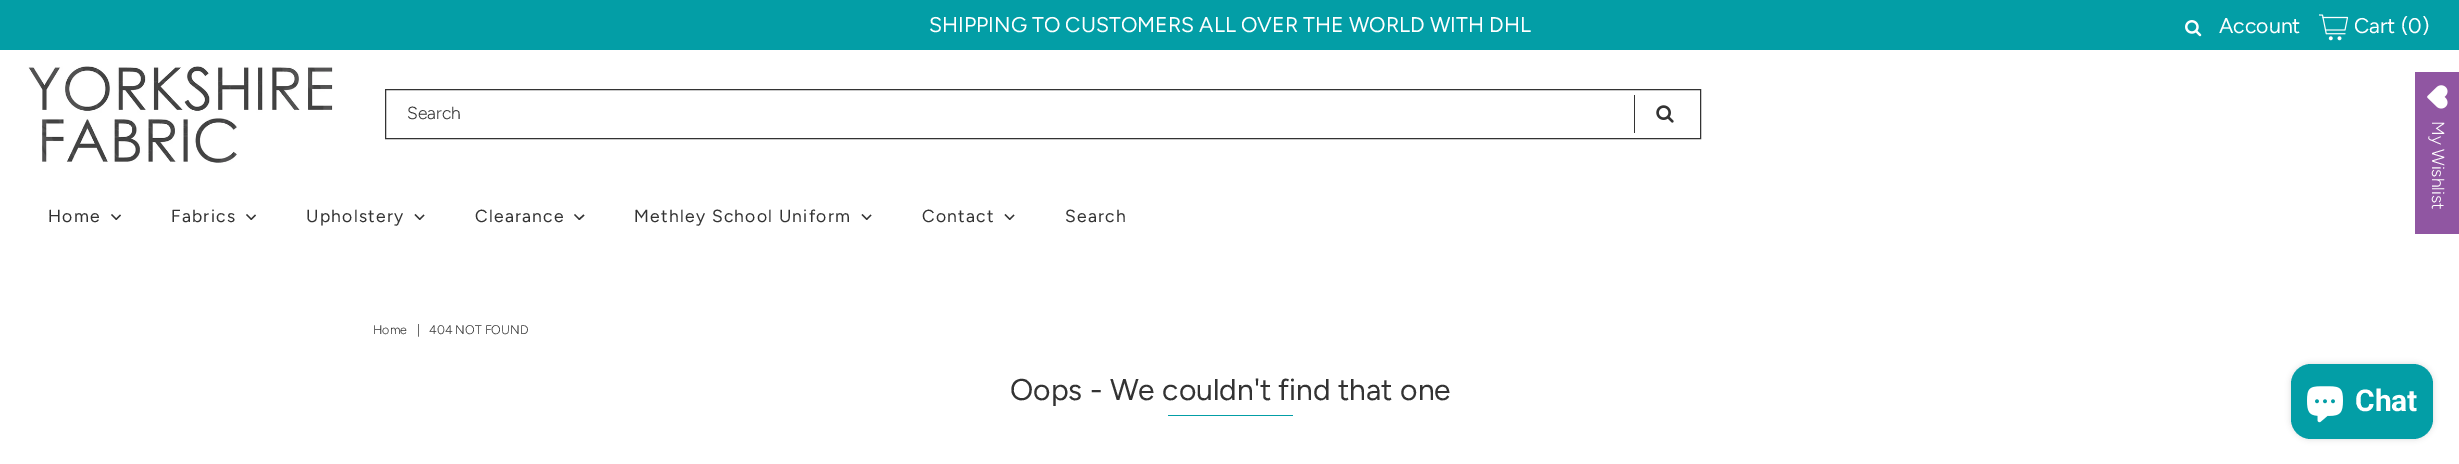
%!PS-Adobe-3.0
%%BoundingBox: 0 0 2459 464
%%LanguageLevel: 3
%%Pages: 1
%%EndComments
%%BeginProlog
/setalpha { dup .setfillconstantalpha .setstrokeconstantalpha } def
/rrect { 5 dict begin { /r /h /w /y /x } { exch def } forall
  x r add y moveto x w add y 2 copy h add r arct x w add y h add x 1 index r arct
  x y h add x y r arct x y 2 copy exch w add exch r arct closepath end } def
/softshadow { 12 dict begin { /a /b /q /h /w /y /x } { exch def } forall gsave /was 0 def
  9 -2 -9 { dup b mul 4 div /e exch def 1 sub .425 mul 2.718 exch exp 1 add a .99 .min exch div /now exch def
    1 1 now sub 1 was sub div sub setalpha /was now def
    w h .min e 2 mul add 0 gt { x e sub y e sub w e 2 mul add h e 2 mul add
      q e add b .6 mul add w h .min 2 div e add .min 0 .max rrect fill } if } for grestore end } def
/drawimage { 5 dict begin { /h /w /y /x /name } { exch def } forall
  gsave x y translate w h scale
  w h 8 [w 0 0 h 0 0] name (r) file false 3 colorimage grestore end } def
%%EndProlog
%%BeginSetup
<< /PageSize [2459 464] /PageUsesTransparency true >> setpagedevice
%%EndSetup
%%Page: 1 1
0 .pushpdf14devicefilter
0 464 translate 1 -1 scale
4 setmiterlimit
1 setgray
0 0 2459 464 rectfill
0.012 0.62 0.651 setrgbcolor
0 0 2459 50 rectfill
(images/1.raw) 2185 20 17 17 drawimage
(images/2.raw) 2319 14 30 27 drawimage
(images/3.raw) 28 66 305 97 drawimage
0.2 setgray
385.5 89.5 1315 49 rectstroke
1634 95 1 38 rectfill
(images/4.raw) 1656 105 18 18 drawimage
newpath 120 214.5 moveto 121 215.5 lineto 116.5 220 lineto 115.5 219 lineto closepath fill
newpath 112 214 moveto 117 219 lineto 116 220 lineto 111 215 lineto closepath fill
newpath 255 214.5 moveto 256 215.5 lineto 251.5 220 lineto 250.5 219 lineto closepath fill
newpath 247 214 moveto 252 219 lineto 251 220 lineto 246 215 lineto closepath fill
newpath 423.5 214.5 moveto 424.5 215.5 lineto 420 220 lineto 419 219 lineto closepath fill
newpath 415.5 214 moveto 420.5 219 lineto 419.5 220 lineto 414.5 215 lineto closepath fill
newpath 583.5 214.5 moveto 584.5 215.5 lineto 579.5 220 lineto 578.5 219 lineto closepath fill
newpath 575 214 moveto 580 219 lineto 579 220 lineto 574 215 lineto closepath fill
newpath 870.5 214.5 moveto 871.5 215.5 lineto 867 220 lineto 866 219 lineto closepath fill
newpath 862.5 214 moveto 867.5 219 lineto 866.5 220 lineto 861.5 215 lineto closepath fill
newpath 1013.5 214.5 moveto 1014.5 215.5 lineto 1010 220 lineto 1009 219 lineto closepath fill
newpath 1005.5 214 moveto 1010.5 219 lineto 1009.5 220 lineto 1004.5 215 lineto closepath fill
0.012 0.62 0.651 setrgbcolor
1168 415 125 1 rectfill
0.565 0.337 0.635 setrgbcolor
2415 72 44 162 rectfill
(images/5.raw) 2427 85 21 24 drawimage
0 setgray
2291 364 142 75 20 3 0.15 softshadow
0.012 0.62 0.651 setrgbcolor
2291 364 142 75 20 rrect fill
(images/6.raw) 2307 386 36 37 drawimage
/Figtree-Regular [21.25 0 0 -21.25 0 0] selectfont
1 setgray
929 32 moveto (SHIPPING TO CUSTOMERS ALL OVER THE WORLD WITH DHL) show
2219 33 moveto (Account) show
2354 33 moveto (Cart \(0\)) show
/Figtree-Light [17.5 0 0 -17.5 0 0] selectfont
0.2 setgray
407 119 moveto (Search) show
/Figtree-Regular [17.5 0 0 -17.5 0 0] selectfont
48 222 moveto 1.25 0 (Home) ashow
171 222 moveto 1.25 0 (Fabrics) ashow
306 222 moveto 1.25 0 (Upholstery) ashow
475 222 moveto 1.25 0 (Clearance) ashow
634 222 moveto 1.25 0 (Methley School Uniform) ashow
922 222 moveto 1.25 0 (Contact) ashow
1065 222 moveto 1.25 0 (Search) ashow
/Figtree-Light [12.5 0 0 -12.5 0 0] selectfont
373 334 moveto (Home) show
417 334 moveto (|) show
429 334 moveto (404 NOT FOUND) show
/Figtree-Regular [30 0 0 -30 0 0] selectfont
1010 400 moveto (Oops - We couldn't find that one) show
/Figtree-Light [17.5 0 0 -17.5 0 0] selectfont
1 setgray
gsave 2432 121 translate 90 rotate 0 0 moveto (My Wishlist) show grestore
/Roboto-Bold [30 0 0 -30 0 0] selectfont
2355 411 moveto (Chat) show
.poppdf14devicefilter showpage
%%EOF
